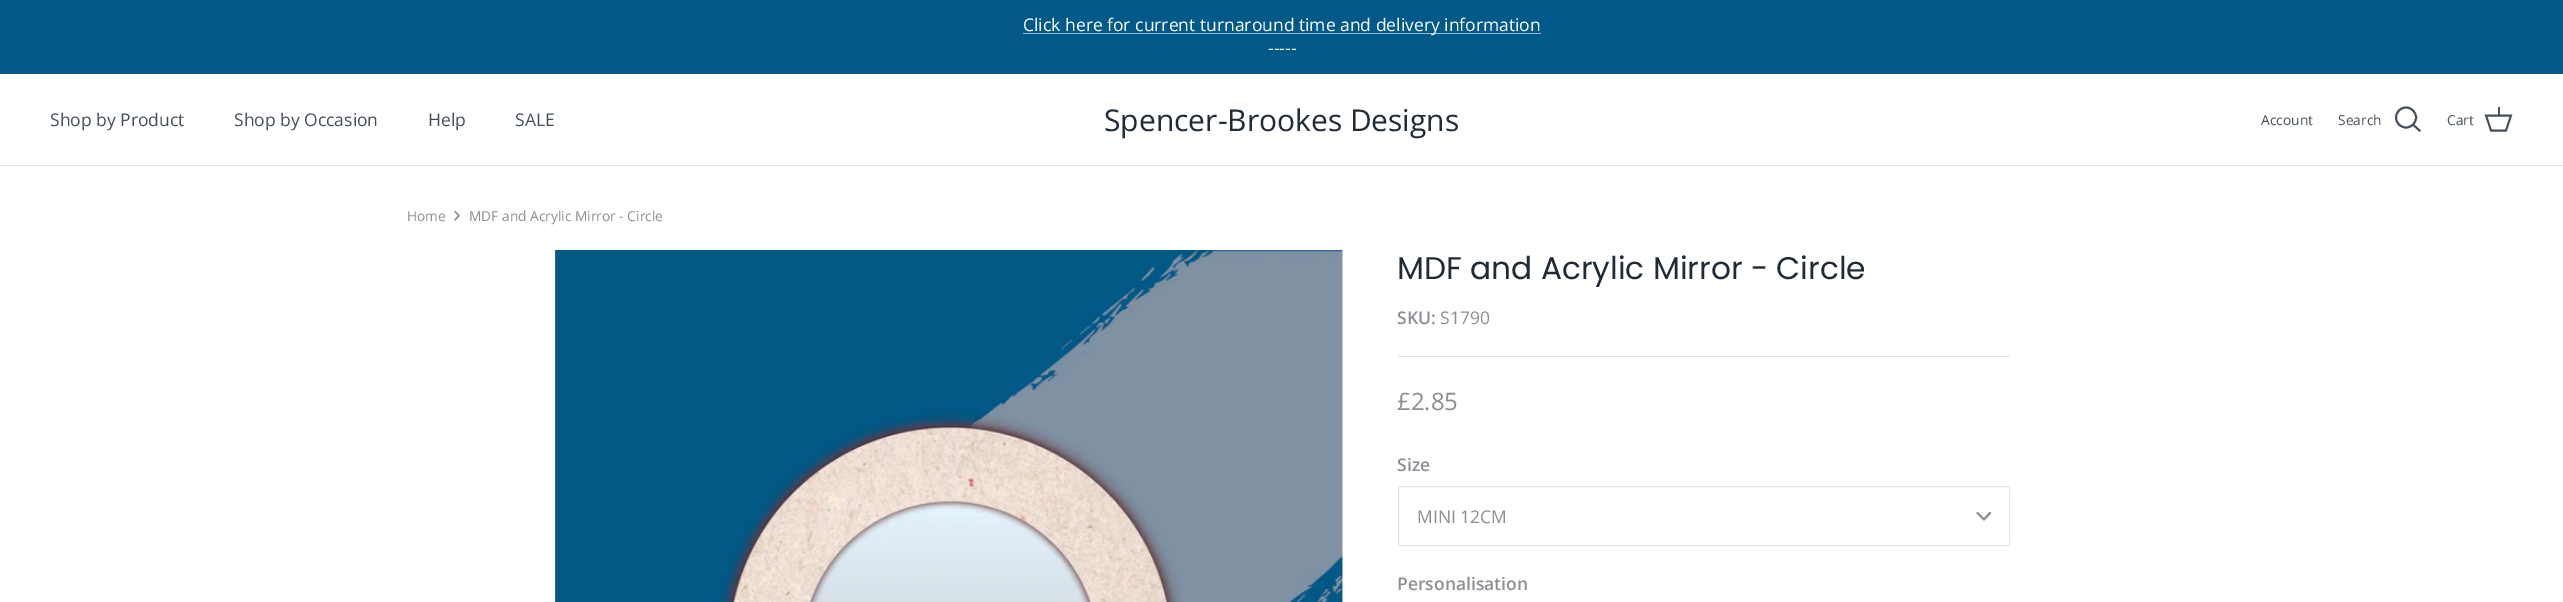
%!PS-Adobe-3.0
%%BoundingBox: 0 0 2563 602
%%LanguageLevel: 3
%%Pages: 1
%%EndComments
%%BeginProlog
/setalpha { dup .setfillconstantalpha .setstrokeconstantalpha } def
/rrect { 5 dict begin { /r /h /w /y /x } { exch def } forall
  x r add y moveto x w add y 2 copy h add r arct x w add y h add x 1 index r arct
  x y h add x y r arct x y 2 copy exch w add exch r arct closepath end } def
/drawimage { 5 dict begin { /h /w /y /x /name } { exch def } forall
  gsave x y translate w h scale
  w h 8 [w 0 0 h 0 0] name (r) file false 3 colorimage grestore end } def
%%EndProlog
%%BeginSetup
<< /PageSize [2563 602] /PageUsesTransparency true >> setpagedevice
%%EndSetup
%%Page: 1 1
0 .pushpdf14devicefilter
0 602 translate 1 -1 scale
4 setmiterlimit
1 setgray
0 0 2563 602 rectfill
0.004 0.349 0.537 setrgbcolor
0 0 2563 74 rectfill
0.6 0.741 0.816 setrgbcolor
1023 33 518 1 rectfill
0.875 0.89 0.91 setrgbcolor
0 165 2563 1 rectfill
0.271 0.31 0.357 setrgbcolor
1.9 setlinewidth
newpath 2406 117.5 10 0 360 arc closepath stroke
2 setlinecap
newpath 2413.5 125 moveto 2419.5 130.5 lineto stroke
0 setlinecap
newpath 2486 115.5 moveto 2511 115.5 lineto 2506 130.5 lineto 2491 130.5 lineto closepath stroke
0.95 setalpha
2498 107 2 9 rectfill
1 setalpha
0.541 0.561 0.576 setrgbcolor
1.4 setlinewidth
1 setlinecap
1 setlinejoin
newpath 455 220 moveto 459 215.5 lineto 455 211.5 lineto stroke
(images/1.raw) 555 250 788 352 drawimage
0.886 setgray
1398 356 612 1 rectfill
0.886 0.89 0.894 setrgbcolor
1 setlinewidth
0 setlinecap
0 setlinejoin
1398.5 486.5 611 59 3.5 rrect stroke
0.541 0.561 0.576 setrgbcolor
2.1 setlinewidth
1 setlinecap
1 setlinejoin
newpath 1977.5 513 moveto 1984 519.5 lineto 1990 513 lineto stroke
/OpenSans-Regular [17.5 0 0 -17.5 0 0] selectfont
1 setgray
1023 31 moveto (Click here for current turnaround time and delivery information) show
1268 54 moveto (-----) show
0.271 0.31 0.357 setrgbcolor
50 126 moveto (Shop by Product) show
234 126 moveto (Shop by Occasion) show
428 126 moveto (Help) show
515 126 moveto (SALE) show
/OpenSans-Regular [30 0 0 -30 0 0] selectfont
0.129 0.169 0.212 setrgbcolor
1104 131 moveto (Spencer-Brookes Designs) show
/OpenSans-Regular [13.75 0 0 -13.75 0 0] selectfont
0.271 0.31 0.357 setrgbcolor
2261 125 moveto (Account) show
2338 125 moveto (Search) show
2447 125 moveto (Cart) show
0.541 0.561 0.576 setrgbcolor
407 221 moveto (Home) show
469 221 moveto (MDF and Acrylic Mirror - Circle) show
/Poppins-Regular [31.25 0 0 -31.25 0 0] selectfont
0.129 0.169 0.212 setrgbcolor
1397 279 moveto (MDF and Acrylic Mirror - Circle) show
/OpenSans-SemiBold [17.5 0 0 -17.5 0 0] selectfont
0.541 0.561 0.576 setrgbcolor
1397 324 moveto (SKU:) show
/OpenSans-Regular [17.5 0 0 -17.5 0 0] selectfont
1440 324 moveto (S1790) show
/OpenSans-Regular [24 0 0 -24 0 0] selectfont
1397 410 moveto (£2.85) show
/OpenSans-SemiBold [17.5 0 0 -17.5 0 0] selectfont
1397 471 moveto (Size) show
/OpenSans-Regular [17.5 0 0 -17.5 0 0] selectfont
1417 523 moveto (MINI 12CM) show
/OpenSans-SemiBold [17.5 0 0 -17.5 0 0] selectfont
1397 590 moveto (Personalisation) show
.poppdf14devicefilter showpage
%%EOF
